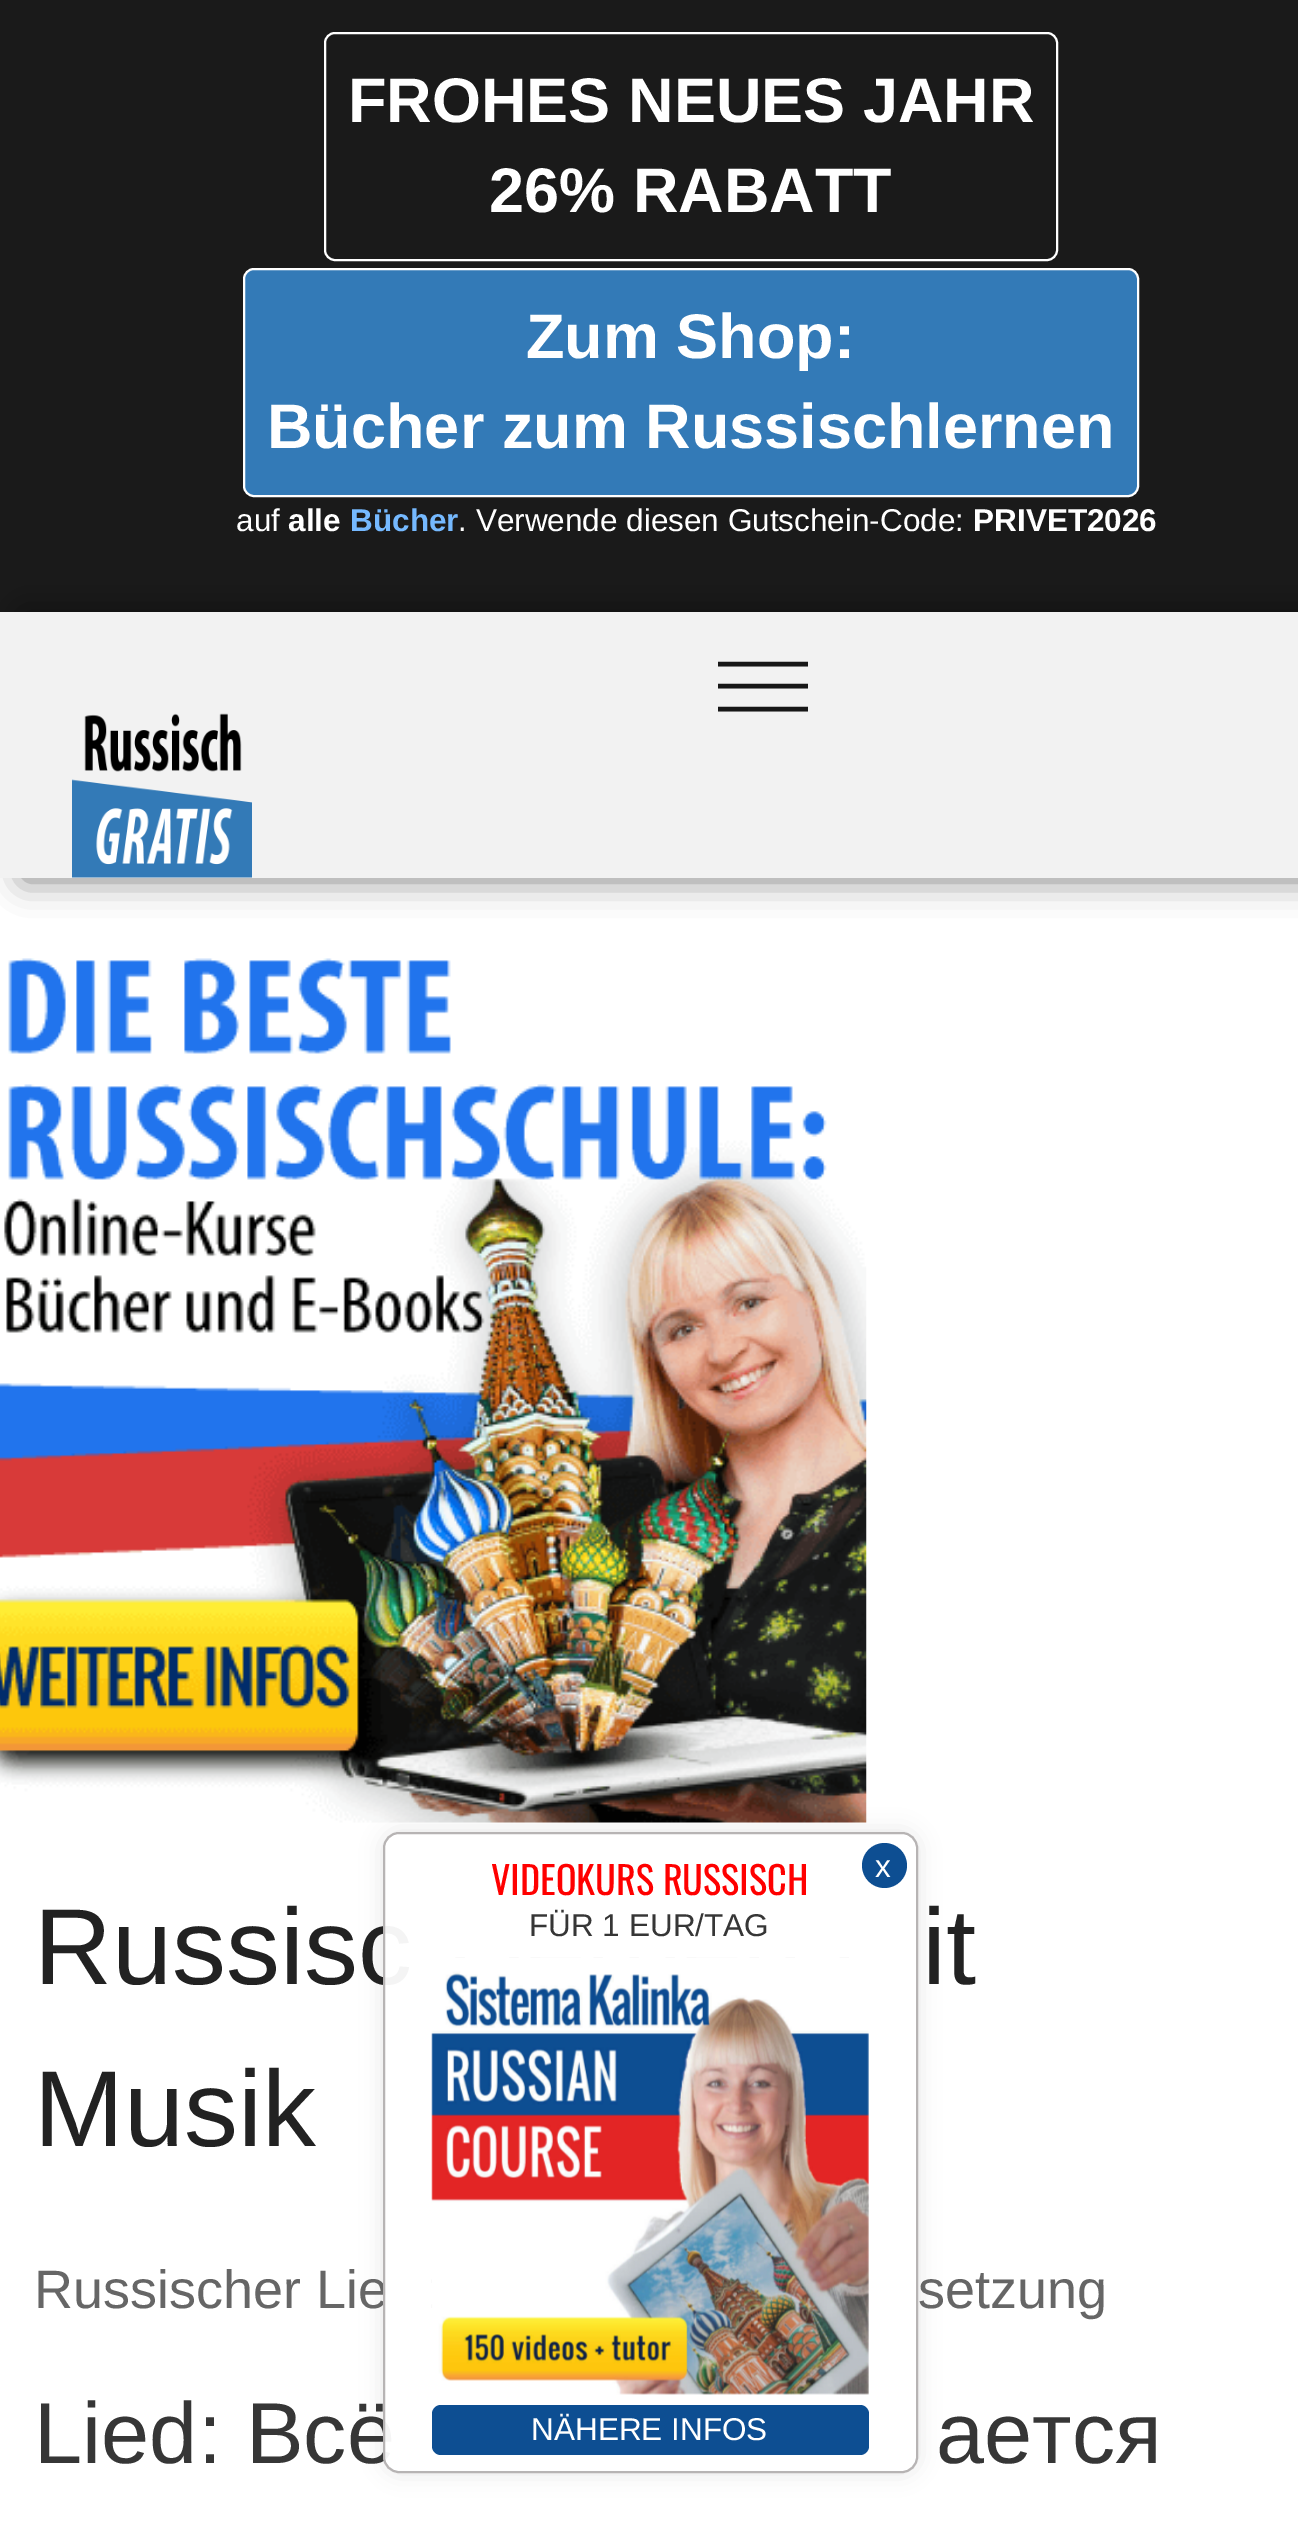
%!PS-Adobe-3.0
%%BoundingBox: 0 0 1298 2521
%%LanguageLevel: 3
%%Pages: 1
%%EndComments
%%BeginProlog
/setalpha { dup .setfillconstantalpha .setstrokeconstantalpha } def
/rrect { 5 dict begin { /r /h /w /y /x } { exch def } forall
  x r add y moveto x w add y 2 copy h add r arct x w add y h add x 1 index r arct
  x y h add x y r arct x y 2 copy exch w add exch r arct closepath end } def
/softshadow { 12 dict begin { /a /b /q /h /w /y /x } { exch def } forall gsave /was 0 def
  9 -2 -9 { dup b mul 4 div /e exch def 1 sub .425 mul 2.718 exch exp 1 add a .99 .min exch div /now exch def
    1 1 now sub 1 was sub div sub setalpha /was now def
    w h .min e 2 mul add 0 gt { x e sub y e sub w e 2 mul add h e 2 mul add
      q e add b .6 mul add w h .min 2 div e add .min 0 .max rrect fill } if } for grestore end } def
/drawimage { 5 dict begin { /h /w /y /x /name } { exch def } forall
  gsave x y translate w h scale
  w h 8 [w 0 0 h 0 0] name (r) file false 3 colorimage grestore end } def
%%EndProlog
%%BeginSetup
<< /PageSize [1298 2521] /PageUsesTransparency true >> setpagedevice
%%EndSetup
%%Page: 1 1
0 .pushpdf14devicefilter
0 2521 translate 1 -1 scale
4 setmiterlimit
1 setgray
0 0 1298 2521 rectfill
0.102 setgray
0 0 1298 612 rectfill
1 setgray
2 setlinewidth
325 33 732 227 10 rrect stroke
0.2 0.478 0.718 setrgbcolor
244 269 894 227 10 rrect gsave fill grestore
1 setgray
stroke
0 setgray
23 614 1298 266 0 17 0.5 softshadow
0.949 setgray
0 612 1298 266 rectfill
0.09 setgray
4.5 setlinewidth
newpath 718 664 moveto 808 664 lineto stroke
newpath 718 686 moveto 808 686 lineto stroke
newpath 718 709 moveto 808 709 lineto stroke
(images/1.raw) 72 713 180 165 drawimage
(images/3.raw) 0 958 867 865 drawimage
gsave
newpath 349 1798 moveto 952 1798 lineto 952 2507 lineto 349 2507 lineto closepath 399 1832 moveto 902 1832 lineto 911 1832 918 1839 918 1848 curveto 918 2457 lineto 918 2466 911 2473 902 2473 curveto 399 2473 lineto 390 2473 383 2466 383 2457 curveto 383 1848 lineto 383 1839 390 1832 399 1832 curveto closepath eoclip newpath
0 setgray
383 1832 535 641 16 11 0.1 softshadow
grestore
/LiberationSans-Bold [63 0 0 -63 0 0] selectfont
1 setgray
348 122 moveto (FROHES NEUES JAHR) show
489 212 moveto (26% RABATT) show
526 358 moveto (Zum Shop:) show
267 448 moveto (Bücher zum Russischlernen) show
/LiberationSans-Regular [31.5 0 0 -31.5 0 0] selectfont
236 531 moveto (auf) show
/LiberationSans-Bold [31.5 0 0 -31.5 0 0] selectfont
288 531 moveto (alle) show
0.459 0.725 1 setrgbcolor
350 531 moveto (Bücher) show
/LiberationSans-Regular [31.5 0 0 -31.5 0 0] selectfont
1 setgray
458 531 moveto (. Verwende diesen Gutschein-Code:) show
/LiberationSans-Bold [31.5 0 0 -31.5 0 0] selectfont
973 531 moveto (PRIVET2026) show
/LiberationSans-Regular [108 0 0 -108 0 0] selectfont
0.133 setgray
34 1984 moveto (Russisc) show
922 1984 moveto (it) show
34 2146 moveto (Musik) show
/LiberationSans-Regular [54 0 0 -54 0 0] selectfont
0.4 setgray
34 2308 moveto (Russischer Lie) show
918 2308 moveto (setzung) show
/LiberationSans-Regular [86.5 0 0 -86.5 0 0] selectfont
0.212 setgray
34 2463 moveto (Lied: Всё) show
0.95 setalpha
1 setgray
384 1833 533 639 15 rrect fill
1 setalpha
0.718 0.706 0.706 setrgbcolor
2 setlinewidth
384 1833 533 639 15 rrect stroke
0.051 0.306 0.573 setrgbcolor
newpath 884.5 1865.5 22.5 0 360 arc closepath fill
/LiberationSans-Regular [31.5 0 0 -31.5 0 0] selectfont
1 setgray
875 1877 moveto (x) show
0.051 0.306 0.573 setrgbcolor
432 2405 437 50 9 rrect fill
1 setgray
531 2440 moveto (NÄHERE INFOS) show
(images/2.raw) 431 1957 438 438 drawimage
0.212 setgray
529 1936 moveto (FÜR 1 EUR/TAG) show
/Oswald-Regular [38.25 0 0 -38.25 0 0] selectfont
1 0 0 setrgbcolor
491 1895 moveto (VIDEOKURS RUSSISCH) show
/LiberationSans-Regular [86.5 0 0 -86.5 0 0] selectfont
0.212 setgray
936 2463 moveto (ается) show
.poppdf14devicefilter showpage
%%EOF
